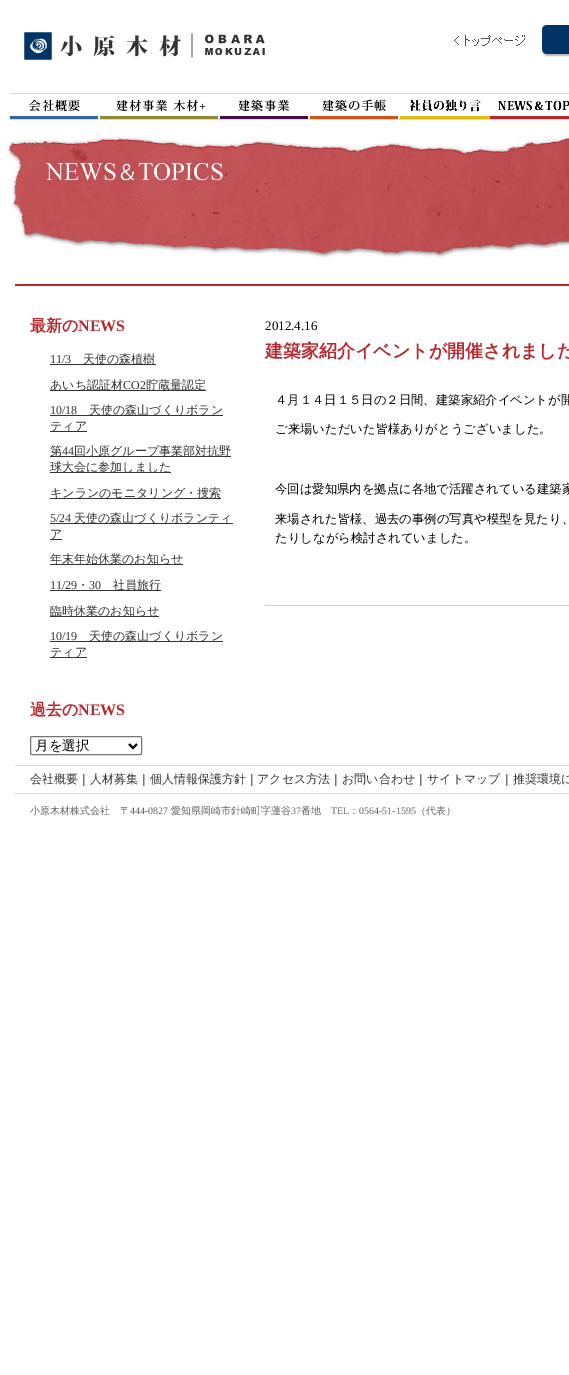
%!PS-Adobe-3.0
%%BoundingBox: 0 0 569 1375
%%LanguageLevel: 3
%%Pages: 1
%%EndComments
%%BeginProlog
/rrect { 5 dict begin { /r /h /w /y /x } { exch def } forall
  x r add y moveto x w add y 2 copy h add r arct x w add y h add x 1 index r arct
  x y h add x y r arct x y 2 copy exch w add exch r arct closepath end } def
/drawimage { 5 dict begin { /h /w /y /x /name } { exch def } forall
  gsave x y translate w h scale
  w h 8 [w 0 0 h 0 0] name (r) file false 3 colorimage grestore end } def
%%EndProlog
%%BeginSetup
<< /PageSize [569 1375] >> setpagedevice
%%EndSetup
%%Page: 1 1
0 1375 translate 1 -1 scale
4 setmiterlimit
1 setgray
0 0 569 1375 rectfill
(images/1.raw) 24 32 241 28 drawimage
(images/2.raw) 454 31 71 20 drawimage
(images/3.raw) 540 20 29 40 drawimage
0.851 setgray
10 93 559 1 rectfill
10 119 559 1 rectfill
(images/4.raw) 10 99 88 20 drawimage
(images/5.raw) 100 100 118 19 drawimage
(images/6.raw) 220 99 88 20 drawimage
(images/7.raw) 310 99 88 20 drawimage
(images/8.raw) 400 99 90 20 drawimage
(images/9.raw) 490 100 79 19 drawimage
(images/10.raw) 5 136 564 122 drawimage
0.718 0.157 0.18 setrgbcolor
15 284 554 2 rectfill
0.2 setgray
50 364 106 1 rectfill
50 390 156 1 rectfill
50 415 173 1 rectfill
50 431 37 1 rectfill
50 456 181 1 rectfill
50 472 121 1 rectfill
50 498 171 1 rectfill
50 523 183 1 rectfill
50 539 12 1 rectfill
50 564 133 1 rectfill
50 590 111 1 rectfill
50 616 109 1 rectfill
50 641 173 1 rectfill
50 657 37 1 rectfill
0.463 setgray
30.5 736.5 111 18 1.5 rrect stroke
0 setgray
2 setlinewidth
newpath 129 744 moveto 133 748 lineto 137 744 lineto stroke
0.8 setgray
265 605 304 1 rectfill
0.851 setgray
15 765 554 1 rectfill
15 793 554 1 rectfill
/WenQuanYiZenHei-Bold [16 0 0 -16 0 0] selectfont
0.718 0.157 0.18 setrgbcolor
30 331 moveto (最新の) show
/LiberationSerif-Bold [16 0 0 -16 0 0] selectfont
78 331 moveto (NEWS) show
/LiberationSerif-Regular [12 0 0 -12 0 0] selectfont
0.2 setgray
50 363 moveto (11/3) show
/WenQuanYiZenHei-Medium [12 0 0 -12 0 0] selectfont
83 363 moveto (天使の森植樹) show
50 389 moveto (あいち認証材) show
/LiberationSerif-Regular [12 0 0 -12 0 0] selectfont
123 389 moveto (CO2) show
/WenQuanYiZenHei-Medium [12 0 0 -12 0 0] selectfont
146 389 moveto (貯蔵量認定) show
/LiberationSerif-Regular [12 0 0 -12 0 0] selectfont
50 414 moveto (10/18) show
/WenQuanYiZenHei-Medium [12 0 0 -12 0 0] selectfont
89 414 moveto (天使の森山づくりボラン) show
50 430 moveto (ティア) show
50 455 moveto (第) show
/LiberationSerif-Regular [12 0 0 -12 0 0] selectfont
62 455 moveto (44) show
/WenQuanYiZenHei-Medium [12 0 0 -12 0 0] selectfont
74 455 moveto (回小原グループ事業部対抗野) show
50 471 moveto (球大会に参加しました) show
50 497 moveto (キンランのモニタリング・捜索) show
/LiberationSerif-Regular [12 0 0 -12 0 0] selectfont
50 522 moveto (5/24) show
/WenQuanYiZenHei-Medium [12 0 0 -12 0 0] selectfont
74 522 moveto (天使の森山づくりボランティ) show
50 538 moveto (ア) show
50 563 moveto (年末年始休業のお知らせ) show
/LiberationSerif-Regular [12 0 0 -12 0 0] selectfont
50 589 moveto (11/29) show
/WenQuanYiZenHei-Medium [12 0 0 -12 0 0] selectfont
77 589 moveto (・) show
/LiberationSerif-Regular [12 0 0 -12 0 0] selectfont
89 589 moveto (30) show
/WenQuanYiZenHei-Medium [12 0 0 -12 0 0] selectfont
113 589 moveto (社員旅行) show
50 615 moveto (臨時休業のお知らせ) show
/LiberationSerif-Regular [12 0 0 -12 0 0] selectfont
50 640 moveto (10/19) show
/WenQuanYiZenHei-Medium [12 0 0 -12 0 0] selectfont
89 640 moveto (天使の森山づくりボラン) show
50 656 moveto (ティア) show
/WenQuanYiZenHei-Bold [16 0 0 -16 0 0] selectfont
0.718 0.157 0.18 setrgbcolor
30 715 moveto (過去の) show
/LiberationSerif-Bold [16 0 0 -16 0 0] selectfont
78 715 moveto (NEWS) show
/WenQuanYiZenHei-Medium [13.5 0 0 -13.5 0 0] selectfont
0 setgray
35 750 moveto (月を選択) show
/LiberationSerif-Regular [13 0 0 -13 0 0] selectfont
265 330 moveto (2012.4.16) show
/WenQuanYiZenHei-Bold [18 0 0 -18 0 0] selectfont
0.718 0.157 0.18 setrgbcolor
265 357 moveto (建築家紹介イベントが開催されました) show
/WenQuanYiZenHei-Medium [12.35 0 0 -12.35 0 0] selectfont
0 setgray
275 404 moveto (４月１４日１５日の２日間、建築家紹介イベントが開) show
275 433 moveto (ご来場いただいた皆様ありがとうございました。) show
275 493 moveto (今回は愛知県内を拠点に各地で活躍されている建築家) show
275 523 moveto (来場された皆様、過去の事例の写真や模型を見たり、) show
275 542 moveto (たりしながら検討されていました。) show
/WenQuanYiZenHei-Medium [12 0 0 -12 0 0] selectfont
0.2 setgray
30 783 moveto (会社概要) show
0 setgray
78 783 moveto (｜) show
0.2 setgray
90 783 moveto (人材募集) show
0 setgray
138 783 moveto (｜) show
0.2 setgray
150 783 moveto (個人情報保護方針) show
0 setgray
246 783 moveto (｜) show
0.2 setgray
257 783 moveto (アクセス方法) show
0 setgray
330 783 moveto (｜) show
0.2 setgray
342 783 moveto (お問い合わせ) show
0 setgray
415 783 moveto (｜) show
0.2 setgray
427 783 moveto (サイトマップ) show
0 setgray
501 783 moveto (｜) show
0.2 setgray
513 783 moveto (推奨環境に) show
/WenQuanYiZenHei-Medium [10 0 0 -10 0 0] selectfont
0.4 setgray
30 814 moveto (小原木材株式会社) show
120 814 moveto (〒) show
/LiberationSerif-Regular [10 0 0 -10 0 0] selectfont
130 814 moveto (444-0827) show
/WenQuanYiZenHei-Medium [10 0 0 -10 0 0] selectfont
171 814 moveto (愛知県岡崎市針崎町字蓮谷) show
/LiberationSerif-Regular [10 0 0 -10 0 0] selectfont
291 814 moveto (37) show
/WenQuanYiZenHei-Medium [10 0 0 -10 0 0] selectfont
301 814 moveto (番地) show
/LiberationSerif-Regular [10 0 0 -10 0 0] selectfont
331 814 moveto (TEL) show
/WenQuanYiZenHei-Medium [10 0 0 -10 0 0] selectfont
349 814 moveto (：) show
/LiberationSerif-Regular [10 0 0 -10 0 0] selectfont
359 814 moveto (0564-51-1595) show
/WenQuanYiZenHei-Medium [10 0 0 -10 0 0] selectfont
416 814 moveto (（代表）) show
showpage
%%EOF
